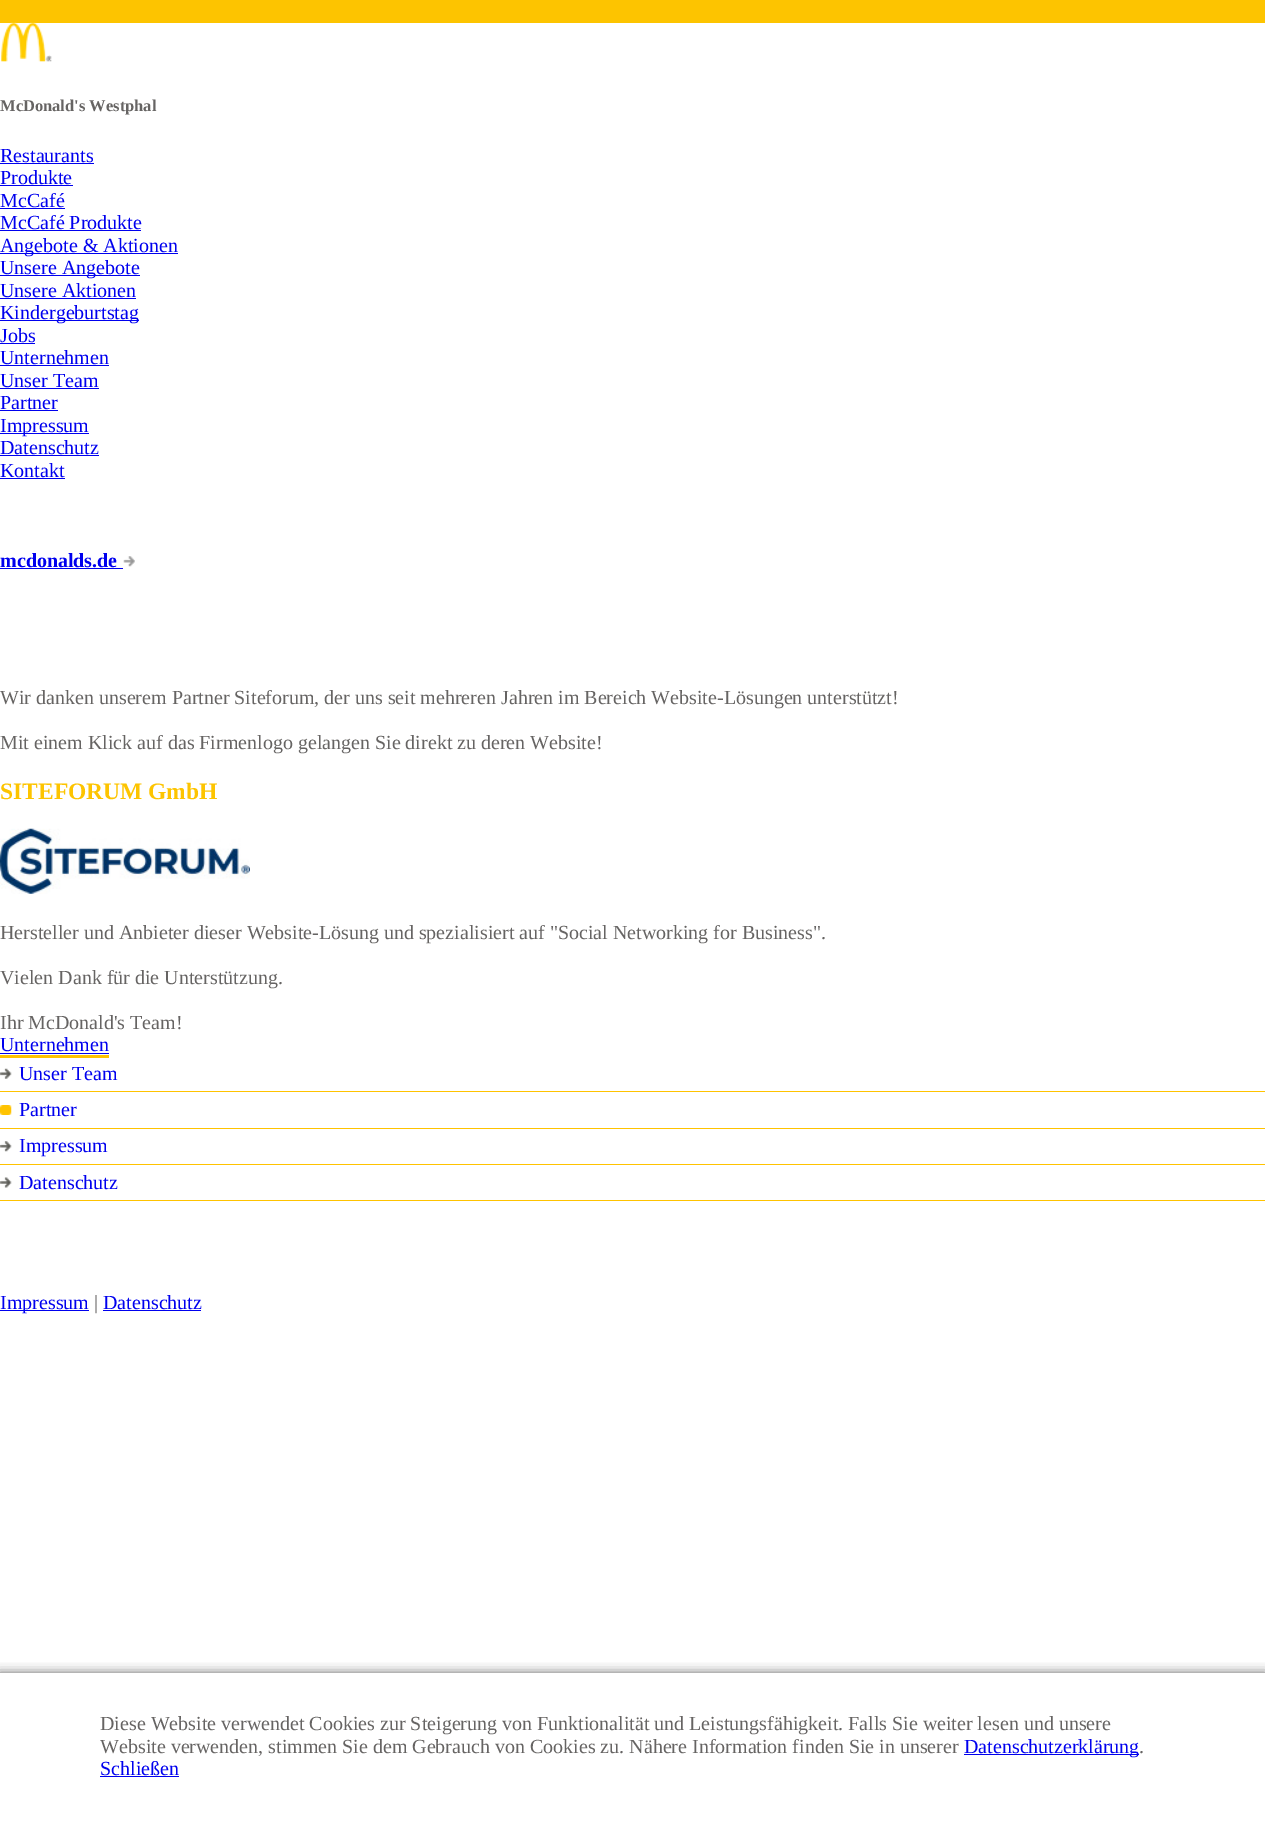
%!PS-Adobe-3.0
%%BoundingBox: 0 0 1265 1842
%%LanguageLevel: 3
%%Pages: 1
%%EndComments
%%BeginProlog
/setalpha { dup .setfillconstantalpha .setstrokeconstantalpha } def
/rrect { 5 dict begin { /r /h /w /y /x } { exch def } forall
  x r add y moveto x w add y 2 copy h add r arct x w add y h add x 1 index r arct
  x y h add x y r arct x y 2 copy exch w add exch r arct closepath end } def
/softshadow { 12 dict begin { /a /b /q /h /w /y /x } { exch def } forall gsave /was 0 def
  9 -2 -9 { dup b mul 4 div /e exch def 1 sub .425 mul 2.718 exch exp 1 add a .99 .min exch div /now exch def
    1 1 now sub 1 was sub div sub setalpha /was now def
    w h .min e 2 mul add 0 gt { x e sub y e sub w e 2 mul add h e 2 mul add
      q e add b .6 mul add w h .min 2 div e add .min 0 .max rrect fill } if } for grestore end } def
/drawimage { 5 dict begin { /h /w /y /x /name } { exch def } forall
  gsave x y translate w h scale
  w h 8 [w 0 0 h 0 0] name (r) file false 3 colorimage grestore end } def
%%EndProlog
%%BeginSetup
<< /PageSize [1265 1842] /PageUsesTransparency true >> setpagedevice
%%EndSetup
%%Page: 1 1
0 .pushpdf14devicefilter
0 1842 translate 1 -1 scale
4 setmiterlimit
1 setgray
0 0 1265 1842 rectfill
0.992 0.769 0 setrgbcolor
0 0 1265 23 rectfill
(images/1.raw) 1 22 51 40 drawimage
0 0 0.933 setrgbcolor
0 163 94 1 rectfill
0 185 73 1 rectfill
0 208 65 1 rectfill
0 230 141 1 rectfill
0 253 178 1 rectfill
0 275 140 1 rectfill
0 298 136 1 rectfill
0 320 139 1 rectfill
0 343 35 1 rectfill
0 365 109 1 rectfill
0 388 99 1 rectfill
0 410 58 1 rectfill
0 433 89 1 rectfill
0 455 99 1 rectfill
0 478 65 1 rectfill
0 568 123 1 rectfill
(images/2.raw) 123 556 12 11 drawimage
(images/3.raw) 0 828 250 66 drawimage
1 0.765 0 setrgbcolor
0 1055 109 3 rectfill
0 0 0.933 setrgbcolor
0 1053 109 1 rectfill
1 0.765 0 setrgbcolor
0 1091 1265 1 rectfill
(images/4.raw) 0 1068 12 11 drawimage
0 1128 1265 1 rectfill
(images/5.raw) 0 1105 12 10 drawimage
0 1164 1265 1 rectfill
(images/6.raw) 0 1141 12 11 drawimage
0 1200 1265 1 rectfill
(images/7.raw) 0 1177 12 11 drawimage
0 0 0.933 setrgbcolor
0 1310 89 1 rectfill
103 1310 98 1 rectfill
gsave
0 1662 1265 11 rectclip
0.4 setgray
-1 1673 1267 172 0 5.5 1 softshadow
grestore
964 1754 175 1 rectfill
100 1776 79 1 rectfill
/LiberationSerif-Bold [16.5 0 0 -16.5 0 0] selectfont
0.4 0.392 0.388 setrgbcolor
0 111 moveto (McDonald's Westphal) show
/LiberationSerif-Regular [20 0 0 -20 0 0] selectfont
0 0 0.933 setrgbcolor
0 162 moveto (Restaurants) show
0 184 moveto (Produkte) show
0 207 moveto (McCafé) show
0 229 moveto (McCafé Produkte) show
0 252 moveto (Angebote & Aktionen) show
0 274 moveto (Unsere Angebote) show
0 297 moveto (Unsere Aktionen) show
0 319 moveto (Kindergeburtstag) show
0 342 moveto (Jobs) show
0 364 moveto (Unternehmen) show
0 387 moveto (Unser Team) show
0 409 moveto (Partner) show
0 432 moveto (Impressum) show
0 454 moveto (Datenschutz) show
0 477 moveto (Kontakt) show
/LiberationSerif-Bold [20 0 0 -20 0 0] selectfont
0 567 moveto (mcdonalds.de) show
/LiberationSerif-Regular [20 0 0 -20 0 0] selectfont
0.4 0.392 0.388 setrgbcolor
0 704 moveto (Wir danken unserem Partner Siteforum, der uns seit mehreren Jahren im Bereich Website-Lösungen unterstützt!) show
0 749 moveto (Mit einem Klick auf das Firmenlogo gelangen Sie direkt zu deren Website!) show
/LiberationSerif-Bold [23.5 0 0 -23.5 0 0] selectfont
0.992 0.769 0 setrgbcolor
0 799 moveto (SITEFORUM GmbH) show
/LiberationSerif-Regular [20 0 0 -20 0 0] selectfont
0.4 0.392 0.388 setrgbcolor
0 939 moveto (Hersteller und Anbieter dieser Website-Lösung und spezialisiert auf "Social Networking for Business".) show
0 984 moveto (Vielen Dank für die Unterstützung.) show
0 1029 moveto (Ihr McDonald's Team!) show
0 0 0.933 setrgbcolor
0 1051 moveto (Unternehmen) show
19 1080 moveto (Unser Team) show
19 1116 moveto (Partner) show
19 1152 moveto (Impressum) show
19 1189 moveto (Datenschutz) show
0 1309 moveto (Impressum) show
0.4 0.392 0.388 setrgbcolor
94 1309 moveto (|) show
0 0 0.933 setrgbcolor
103 1309 moveto (Datenschutz) show
0.4 0.392 0.388 setrgbcolor
100 1730 moveto (Diese Website verwendet Cookies zur Steigerung von Funktionalität und Leistungsfähigkeit. Falls Sie weiter lesen und unsere) show
100 1753 moveto (Website verwenden, stimmen Sie dem Gebrauch von Cookies zu. Nähere Information finden Sie in unserer) show
0 0 0.933 setrgbcolor
964 1753 moveto (Datenschutzerklärung) show
0.4 0.392 0.388 setrgbcolor
1139 1753 moveto (.) show
0 0 0.933 setrgbcolor
100 1775 moveto (Schließen) show
.poppdf14devicefilter showpage
%%EOF
